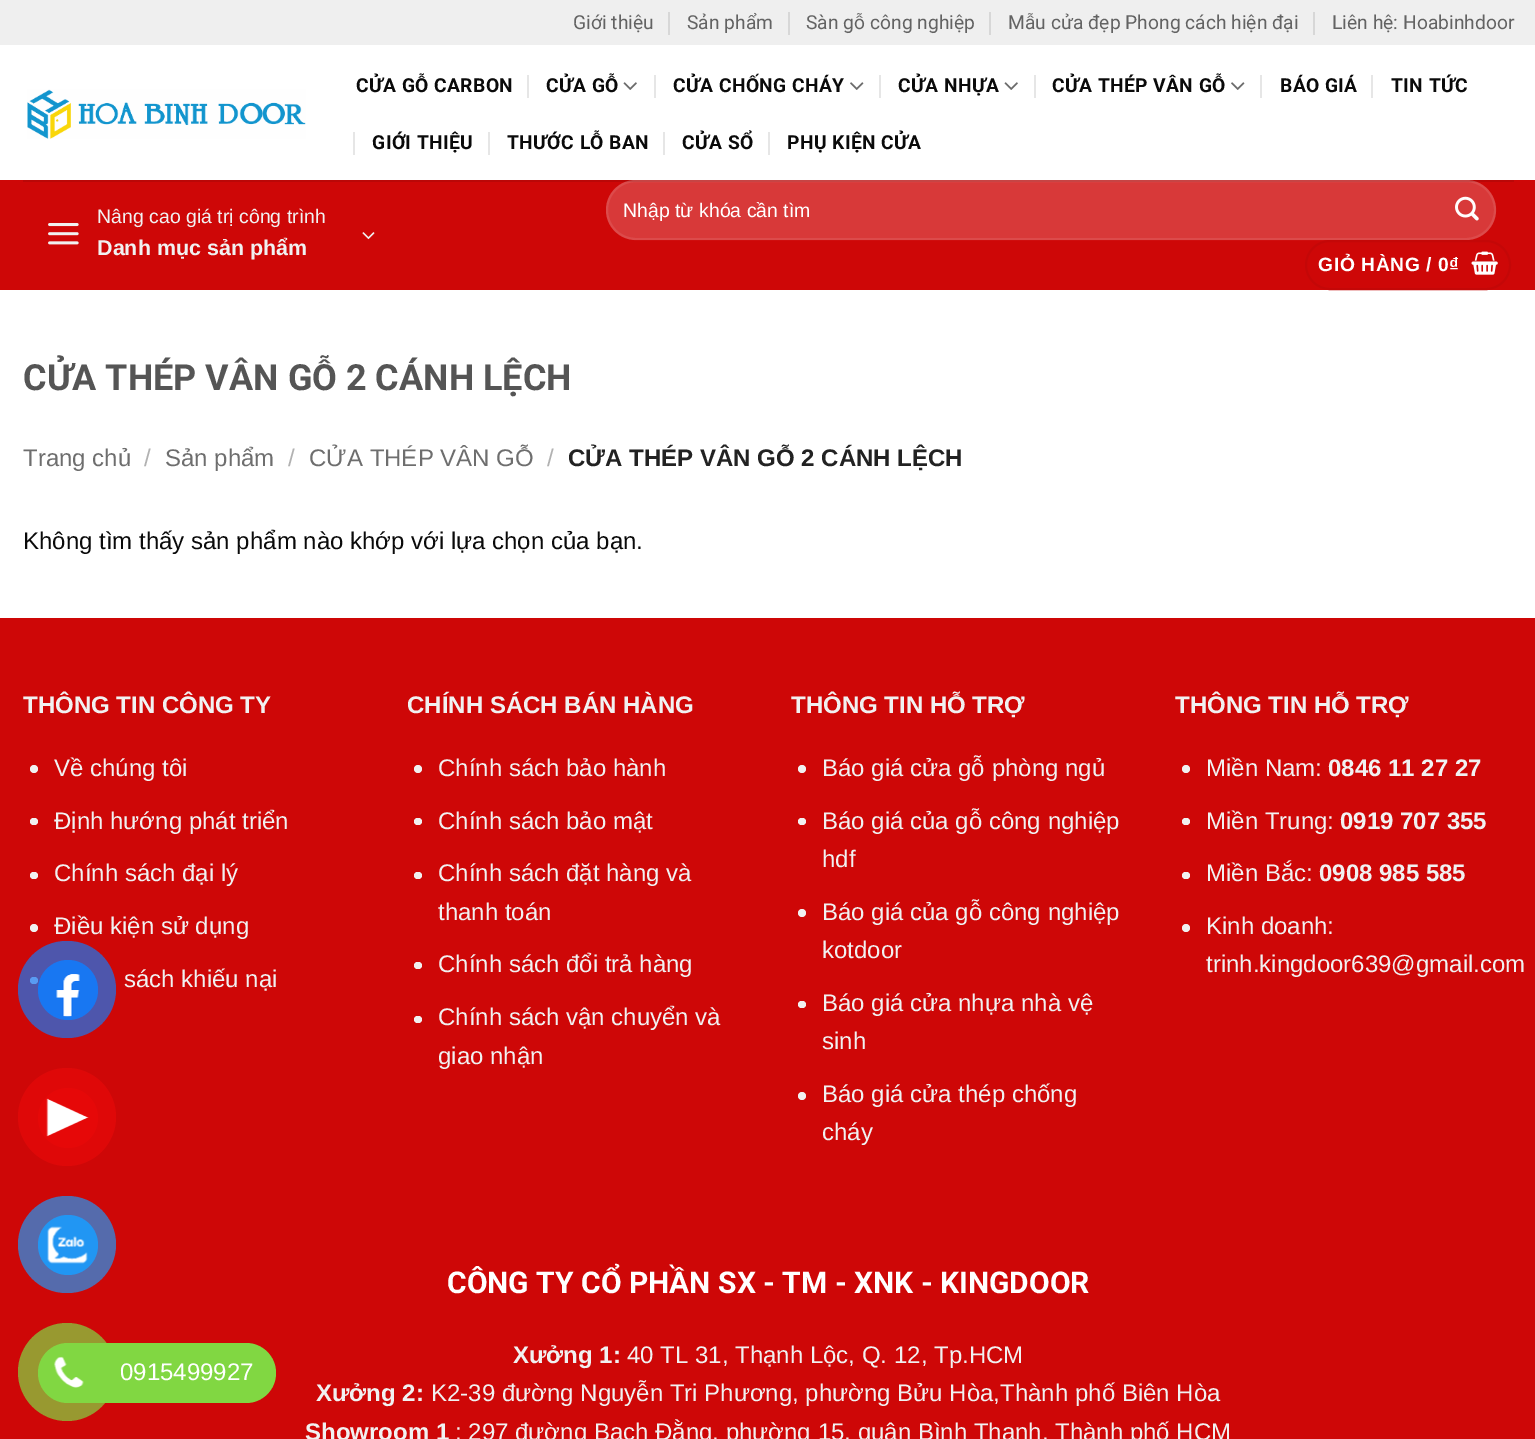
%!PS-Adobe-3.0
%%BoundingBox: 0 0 1535 1439
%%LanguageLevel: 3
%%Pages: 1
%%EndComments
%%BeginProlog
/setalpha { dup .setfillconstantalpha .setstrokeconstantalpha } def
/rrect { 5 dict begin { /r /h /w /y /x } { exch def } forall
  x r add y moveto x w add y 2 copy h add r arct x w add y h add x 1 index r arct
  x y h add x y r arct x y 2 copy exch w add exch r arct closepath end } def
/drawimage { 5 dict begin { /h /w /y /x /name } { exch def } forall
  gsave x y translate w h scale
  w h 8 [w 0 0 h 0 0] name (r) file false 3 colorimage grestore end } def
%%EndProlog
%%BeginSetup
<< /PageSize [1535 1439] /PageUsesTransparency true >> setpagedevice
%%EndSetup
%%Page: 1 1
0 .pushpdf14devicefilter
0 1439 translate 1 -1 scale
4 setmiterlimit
1 setgray
0 0 1535 1439 rectfill
0.937 setgray
0 0 1535 45 rectfill
0.843 setgray
668 12 2 23 rectfill
788 12 2 23 rectfill
989 12 2 23 rectfill
1313 12 2 23 rectfill
(images/1.raw) 27 89 279 50 drawimage
0.902 setgray
527 75 2 23 rectfill
(images/2.raw) 623 82 14 8 drawimage
654 75 2 23 rectfill
(images/3.raw) 850 82 14 8 drawimage
879 75 2 23 rectfill
(images/2.raw) 1004 82 14 8 drawimage
1034 75 2 23 rectfill
(images/3.raw) 1231 82 14 8 drawimage
1260 75 2 23 rectfill
1371 75 2 23 rectfill
353 132 2 23 rectfill
488 132 2 23 rectfill
663 132 2 23 rectfill
768 132 2 23 rectfill
0.808 0.027 0.027 setrgbcolor
0 180 1535 110 rectfill
0.847 0.224 0.224 setrgbcolor
606 180 890 60 30 rrect fill
0.09 setalpha
1 setgray
2 setlinewidth
607 181 888 58 29 rrect stroke
0.1 setalpha
0.039 setgray
23 180 1491 2 rectfill
1 setalpha
(images/4.raw) 48 223 31 22 drawimage
(images/5.raw) 362 232 13 8 drawimage
(images/6.raw) 1455 196 24 25 drawimage
0.769 0.027 0.027 setrgbcolor
1306 241 204 48 24 rrect stroke
(images/7.raw) 1471 251 27 24 drawimage
0.808 0.027 0.027 setrgbcolor
0 618 1535 821 rectfill
0.945 setgray
newpath 34 769 4 0 360 arc closepath fill
30 818 8 7 3.5 rrect fill
30 872 8 7 3.5 rrect fill
newpath 34 928 4 0 360 arc closepath fill
30 977 8 7 3.5 rrect fill
newpath 418 769 4 0 360 arc closepath fill
414 818 8 7 3.5 rrect fill
414 872 8 7 3.5 rrect fill
414 962 8 7 3.5 rrect fill
414 1016 8 7 3.5 rrect fill
newpath 802 769 4 0 360 arc closepath fill
798 818 8 7 3.5 rrect fill
newpath 802 913 4 0 360 arc closepath fill
798 1001 8 7 3.5 rrect fill
newpath 802 1096 4 0 360 arc closepath fill
newpath 1186 769 4 0 360 arc closepath fill
1182 818 8 7 3.5 rrect fill
1182 872 8 7 3.5 rrect fill
newpath 1186 928 4 0 360 arc closepath fill
0.7 setalpha
0.094 0.467 0.949 setrgbcolor
18 941 98 97 48.5 rrect fill
1 setalpha
newpath 68 990 30 0 360 arc closepath fill
(images/8.raw) 56 974 24 43 drawimage
0.875 0.031 0.031 setrgbcolor
newpath 67 1117 49 0 360 arc closepath fill
0.902 0.031 0.031 setrgbcolor
newpath 68 1118 30 0 360 arc closepath fill
(images/9.raw) 46 1098 43 39 drawimage
0.333 0.42 0.675 setrgbcolor
18 1196 98 97 48.5 rrect fill
0.129 0.588 0.953 setrgbcolor
newpath 68 1245 30 0 360 arc closepath fill
(images/10.raw) 47 1226 41 38 drawimage
0.506 0.843 0.259 setrgbcolor
45 1343 231 60 30 rrect fill
0.7 setalpha
newpath 67 1372 49 0 360 arc closepath fill
1 setalpha
newpath 68 1373 30 0 360 arc closepath fill
(images/11.raw) 54 1356 30 32 drawimage
/Roboto-Regular [19.25 0 0 -19.25 0 0] selectfont
0.388 setgray
573 29 moveto (Giới thiệu) show
687 29 moveto (Sản phẩm) show
806 29 moveto (Sàn gỗ công nghiệp) show
1008 29 moveto (Mẫu cửa đẹp Phong cách hiện đại) show
1332 29 moveto (Liên hệ: Hoabinhdoor) show
/Roboto-Bold [19.25 0 0 -19.25 0 0] selectfont
0.039 setgray
356 92 moveto 0.4 0 (CỬA GỖ CARBON) ashow
546 92 moveto 0.4 0 (CỬA GỖ) ashow
673 92 moveto 0.4 0 (CỬA CHỐNG CHÁY) ashow
898 92 moveto 0.4 0 (CỬA NHỰA) ashow
1052 92 moveto 0.4 0 (CỬA THÉP VÂN GỖ) ashow
1280 92 moveto 0.4 0 (BÁO GIÁ) ashow
1391 92 moveto 0.4 0 (TIN TỨC) ashow
372 149 moveto 0.4 0 (GIỚI THIỆU) ashow
507 149 moveto 0.4 0 (THƯỚC LỖ BAN) ashow
682 149 moveto 0.4 0 (CỬA SỔ) ashow
787 149 moveto 0.4 0 (PHỤ KIỆN CỬA) ashow
/LiberationSans-Regular [19.5 0 0 -19.5 0 0] selectfont
0.945 setgray
97 223 moveto (Nâng cao giá trị công trình) show
/LiberationSans-Bold [21.5 0 0 -21.5 0 0] selectfont
97 255 moveto (Danh mục sản phẩm) show
/LiberationSans-Regular [19.5 0 0 -19.5 0 0] selectfont
1 setgray
623 217 moveto (Nhập từ khóa cần tìm) show
/LiberationSans-Bold [19.25 0 0 -19.25 0 0] selectfont
1318 271 moveto 0.6 0 (GIỎ HÀNG / 0₫) ashow
/Roboto-Bold [36 0 0 -36 0 0] selectfont
0.333 setgray
23 390 moveto (CỬA THÉP VÂN GỖ 2 CÁNH LỆCH) show
/LiberationSans-Regular [24 0 0 -24 0 0] selectfont
0.431 setgray
23 466 moveto (Trang chủ) show
0.698 setgray
144 466 moveto (/) show
0.431 setgray
165 466 moveto (Sản phẩm) show
0.698 setgray
288 466 moveto (/) show
0.431 setgray
309 466 moveto (CỬA THÉP VÂN GỖ) show
0.698 setgray
547 466 moveto (/) show
/LiberationSans-Bold [24 0 0 -24 0 0] selectfont
0.133 setgray
568 466 moveto (CỬA THÉP VÂN GỖ 2 CÁNH LỆCH) show
/LiberationSans-Regular [24 0 0 -24 0 0] selectfont
0.039 setgray
23 549 moveto (Không tìm thấy sản phẩm nào khớp với lựa chọn của bạn.) show
/LiberationSans-Bold [24 0 0 -24 0 0] selectfont
0.945 setgray
23 713 moveto (THÔNG TIN CÔNG TY) show
/LiberationSans-Regular [24 0 0 -24 0 0] selectfont
54 776 moveto (Về chúng tôi) show
54 829 moveto (Định hướng phát triển) show
54 881 moveto (Chính sách đại lý) show
54 934 moveto (Điều kiện sử dụng) show
124 987 moveto (sách khiếu nại) show
/LiberationSans-Bold [24 0 0 -24 0 0] selectfont
407 713 moveto (CHÍNH SÁCH BÁN HÀNG) show
/LiberationSans-Regular [24 0 0 -24 0 0] selectfont
438 776 moveto (Chính sách bảo hành) show
438 829 moveto (Chính sách bảo mật) show
438 881 moveto (Chính sách đặt hàng và) show
438 920 moveto (thanh toán) show
438 972 moveto (Chính sách đổi trả hàng) show
438 1025 moveto (Chính sách vận chuyển và) show
438 1064 moveto (giao nhận) show
/LiberationSans-Bold [24 0 0 -24 0 0] selectfont
791 713 moveto (THÔNG TIN HỖ TRỢ) show
/LiberationSans-Regular [24 0 0 -24 0 0] selectfont
822 776 moveto (Báo giá cửa gỗ phòng ngủ) show
822 829 moveto (Báo giá của gỗ công nghiệp) show
822 867 moveto (hdf) show
822 920 moveto (Báo giá của gỗ công nghiệp) show
822 958 moveto (kotdoor) show
822 1011 moveto (Báo giá cửa nhựa nhà vệ) show
822 1049 moveto (sinh) show
822 1102 moveto (Báo giá cửa thép chống) show
822 1140 moveto (cháy) show
/LiberationSans-Bold [24 0 0 -24 0 0] selectfont
1175 713 moveto (THÔNG TIN HỖ TRỢ) show
/LiberationSans-Regular [24 0 0 -24 0 0] selectfont
1206 776 moveto (Miền Nam:) show
/LiberationSans-Bold [24 0 0 -24 0 0] selectfont
1328 776 moveto (0846 11 27 27) show
/LiberationSans-Regular [24 0 0 -24 0 0] selectfont
1206 829 moveto (Miền Trung:) show
/LiberationSans-Bold [24 0 0 -24 0 0] selectfont
1340 829 moveto (0919 707 355) show
/LiberationSans-Regular [24 0 0 -24 0 0] selectfont
1206 881 moveto (Miền Bắc:) show
/LiberationSans-Bold [24 0 0 -24 0 0] selectfont
1319 881 moveto (0908 985 585) show
/LiberationSans-Regular [24 0 0 -24 0 0] selectfont
1206 934 moveto (Kinh doanh:) show
1206 972 moveto (trinh.kingdoor639@gmail.com) show
/Roboto-Bold [30 0 0 -30 0 0] selectfont
1 setgray
447 1293 moveto (CÔNG TY CỔ PHẦN SX - TM - XNK - KINGDOOR) show
/LiberationSans-Bold [24 0 0 -24 0 0] selectfont
0.945 setgray
513 1363 moveto (Xưởng 1:) show
/LiberationSans-Regular [24 0 0 -24 0 0] selectfont
627 1363 moveto (40 TL 31, Thạnh Lộc, Q. 12, Tp.HCM) show
/LiberationSans-Bold [24 0 0 -24 0 0] selectfont
316 1401 moveto (Xưởng 2:) show
/LiberationSans-Regular [24 0 0 -24 0 0] selectfont
431 1401 moveto (K2-39 đường Nguyễn Tri Phương, phường Bửu Hòa,Thành phố Biên Hòa) show
/LiberationSans-Bold [24 0 0 -24 0 0] selectfont
305 1440 moveto (Showroom 1) show
/LiberationSans-Regular [24 0 0 -24 0 0] selectfont
455 1440 moveto (: 297 đường Bạch Đằng, phường 15, quận Bình Thạnh, Thành phố HCM) show
1 setgray
120 1380 moveto (0915499927) show
.poppdf14devicefilter showpage
%%EOF
